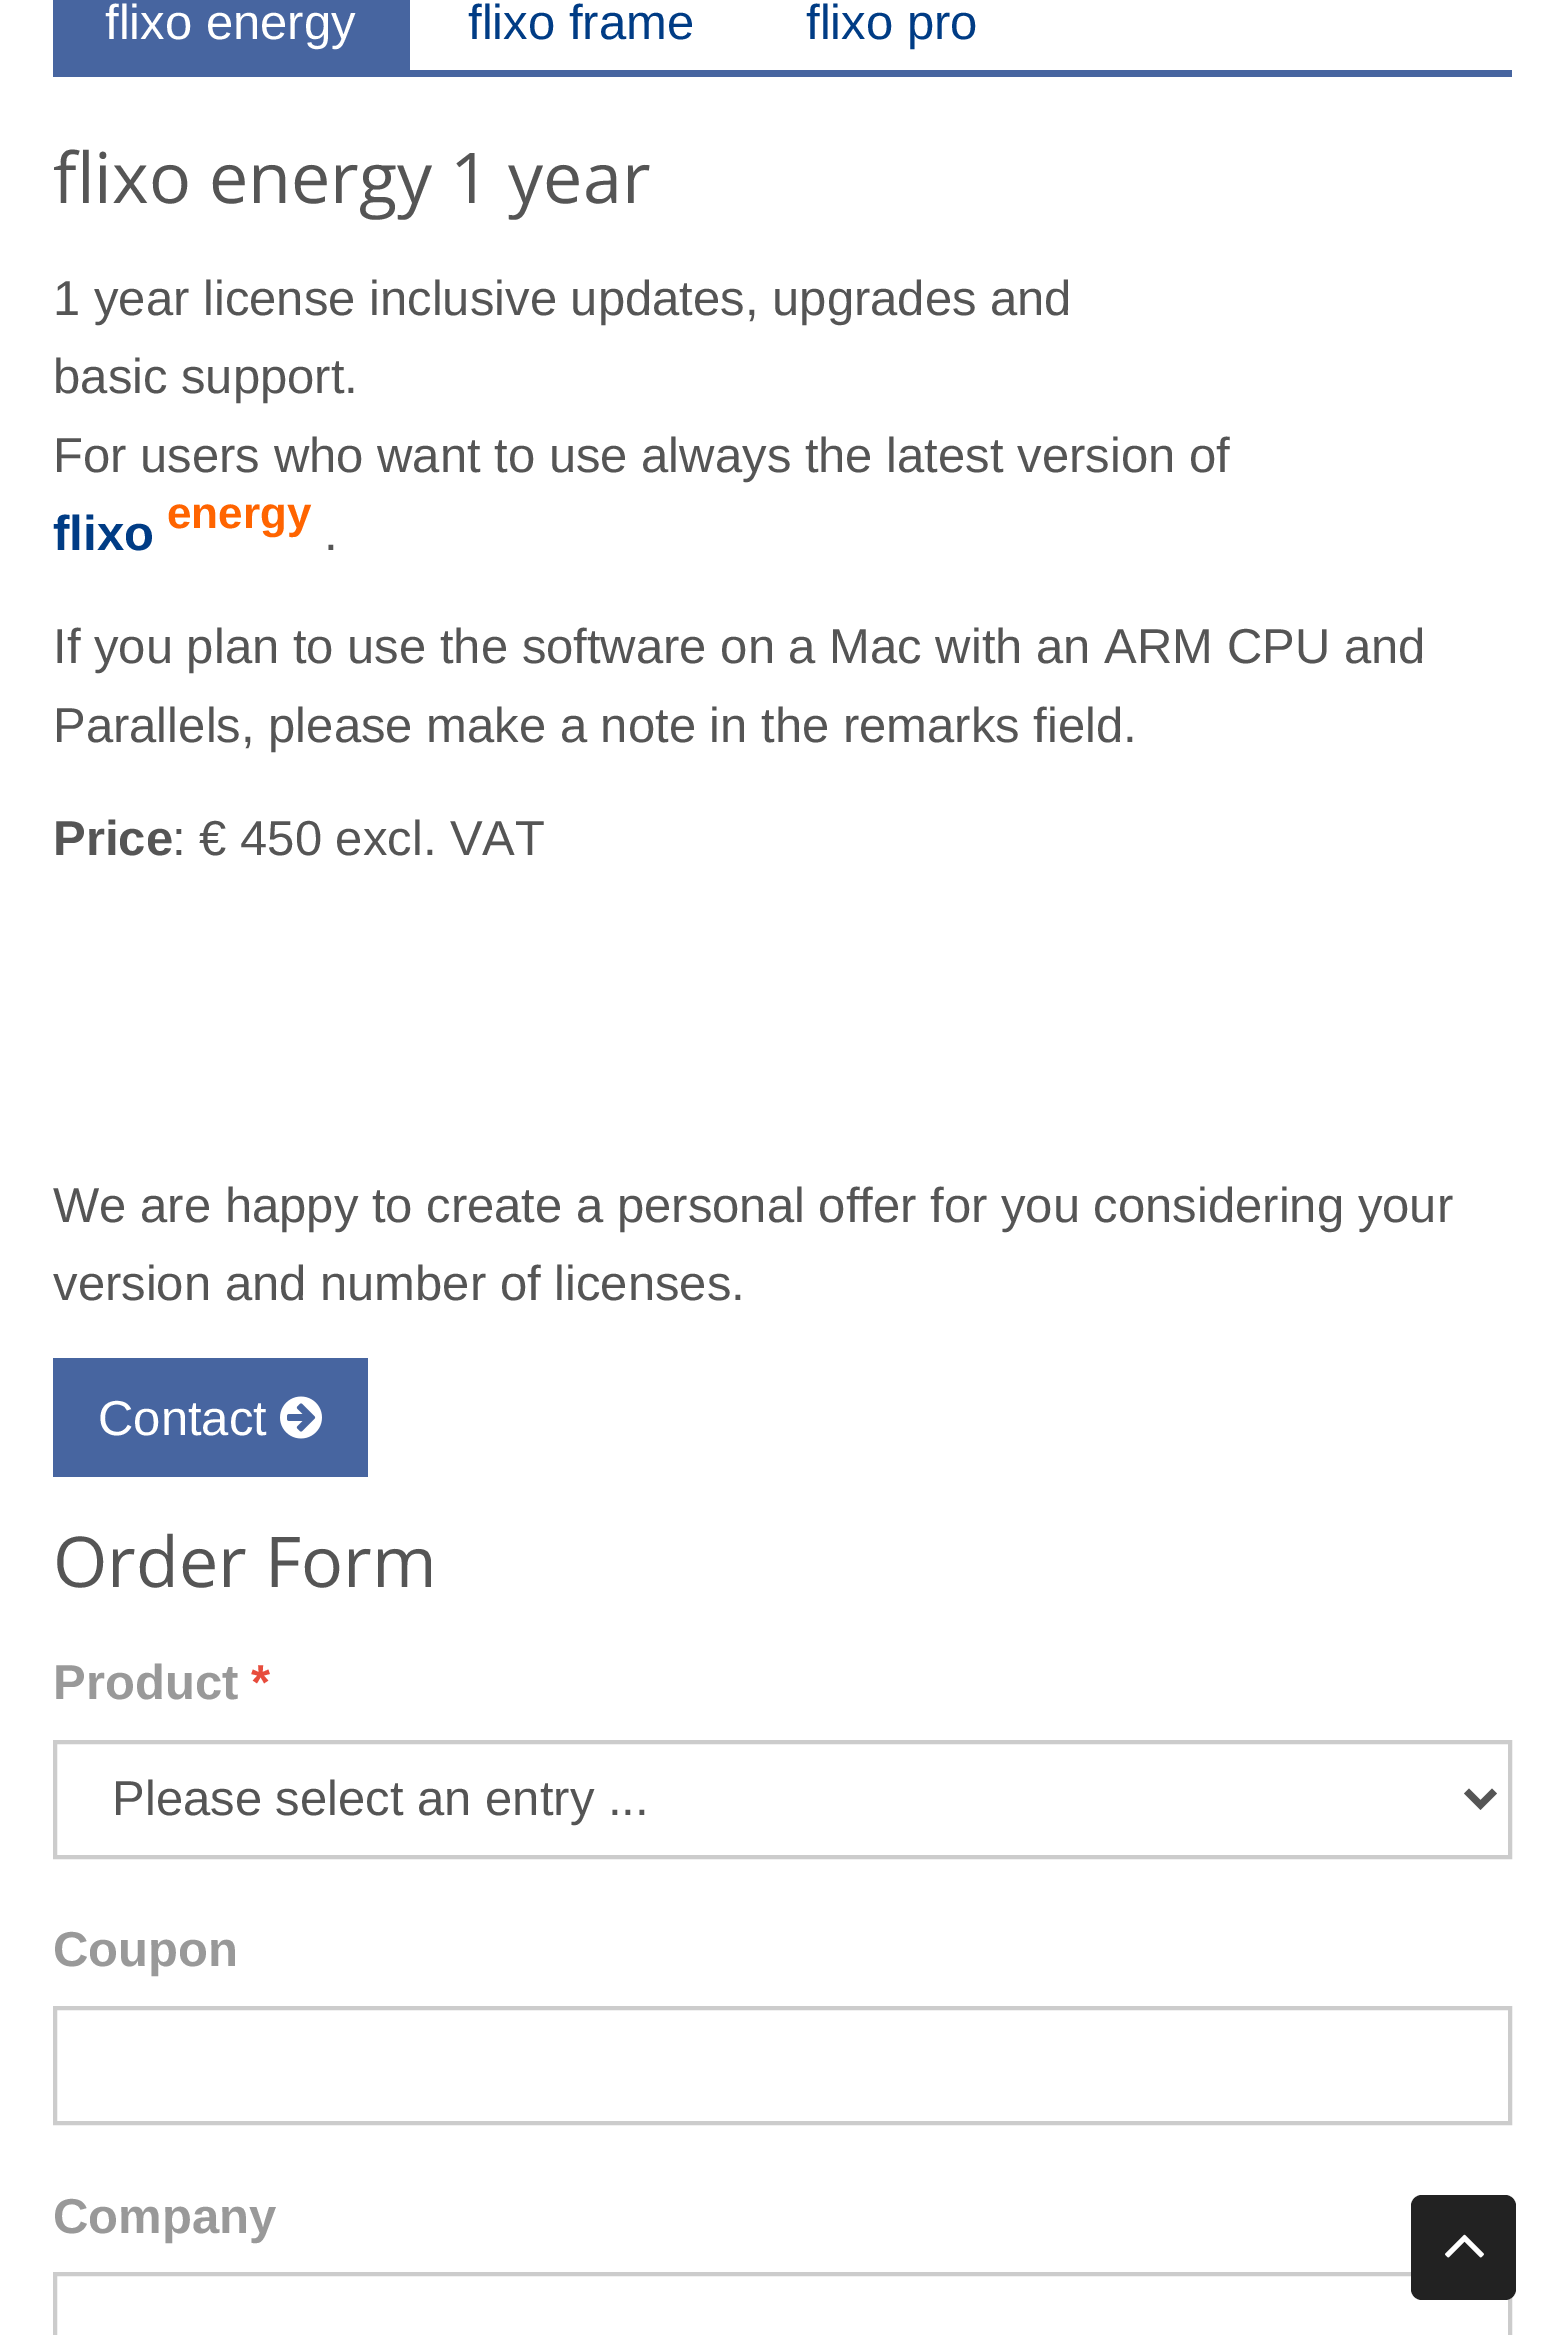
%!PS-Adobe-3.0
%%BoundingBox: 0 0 1562 2335
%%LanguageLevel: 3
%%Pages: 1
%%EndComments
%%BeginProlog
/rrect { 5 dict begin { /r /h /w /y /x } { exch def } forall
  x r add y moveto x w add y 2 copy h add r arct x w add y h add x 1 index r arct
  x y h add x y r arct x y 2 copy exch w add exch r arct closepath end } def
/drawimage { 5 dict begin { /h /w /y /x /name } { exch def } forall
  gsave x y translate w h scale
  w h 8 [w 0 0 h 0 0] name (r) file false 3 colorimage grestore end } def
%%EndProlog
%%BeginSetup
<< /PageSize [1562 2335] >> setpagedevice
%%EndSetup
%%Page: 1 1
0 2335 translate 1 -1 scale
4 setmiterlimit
1 setgray
0 0 1562 2335 rectfill
0.278 0.396 0.627 setrgbcolor
53 70 1459 7 rectfill
53 0 357 70 rectfill
53 1358 315 119 rectfill
(images/1.raw) 280 1396 42 43 drawimage
0.8 setgray
4 setlinewidth
55 1742 1455 115 rectstroke
0.333 setgray
7 setlinewidth
newpath 1466.5 1791 moveto 1480.5 1805 lineto 1494.5 1791 lineto stroke
0.8 setgray
4 setlinewidth
55 2008 1455 115 rectstroke
55 2274 1455 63 rectstroke
0.133 setgray
1411 2195 105 105 11 rrect fill
(images/2.raw) 1445 2234 39 24 drawimage
/LiberationSans-Regular [49 0 0 -49 0 0] selectfont
1 setgray
105 39 moveto (flixo energy) show
0 0.235 0.522 setrgbcolor
468 39 moveto (flixo frame) show
806 39 moveto (flixo pro) show
/OpenSans-Regular [70 0 0 -70 0 0] selectfont
0.333 setgray
53 203 moveto (flixo energy 1 year) show
/LiberationSans-Regular [49 0 0 -49 0 0] selectfont
53 315 moveto (1 year license inclusive updates, upgrades and) show
53 393 moveto (basic support.) show
53 472 moveto (For users who want to use always the latest version of) show
/LiberationSans-Bold [49 0 0 -49 0 0] selectfont
0 0.235 0.522 setrgbcolor
53 550 moveto (flixo) show
/LiberationSans-Bold [44 0 0 -44 0 0] selectfont
1 0.392 0 setrgbcolor
167 528 moveto (energy) show
/LiberationSans-Regular [49 0 0 -49 0 0] selectfont
0.333 setgray
324 550 moveto (.) show
53 663 moveto (If you plan to use the software on a Mac with an ARM CPU and) show
53 742 moveto (Parallels, please make a note in the remarks field.) show
/LiberationSans-Bold [49 0 0 -49 0 0] selectfont
53 855 moveto (Price) show
/LiberationSans-Regular [49 0 0 -49 0 0] selectfont
172 855 moveto (: € 450 excl. VAT) show
53 1222 moveto (We are happy to create a personal offer for you considering your) show
53 1300 moveto (version and number of licenses.) show
1 setgray
98 1435 moveto (Contact) show
/OpenSans-Regular [70 0 0 -70 0 0] selectfont
0.333 setgray
53 1587 moveto (Order Form) show
/LiberationSans-Bold [49 0 0 -49 0 0] selectfont
0.6 setgray
53 1699 moveto (Product) show
0.906 0.298 0.235 setrgbcolor
251 1699 moveto (*) show
/LiberationSans-Regular [49 0 0 -49 0 0] selectfont
0.333 setgray
112 1815 moveto (Please select an entry ...) show
/LiberationSans-Bold [49 0 0 -49 0 0] selectfont
0.6 setgray
53 1966 moveto (Coupon) show
53 2233 moveto (Company) show
showpage
%%EOF
